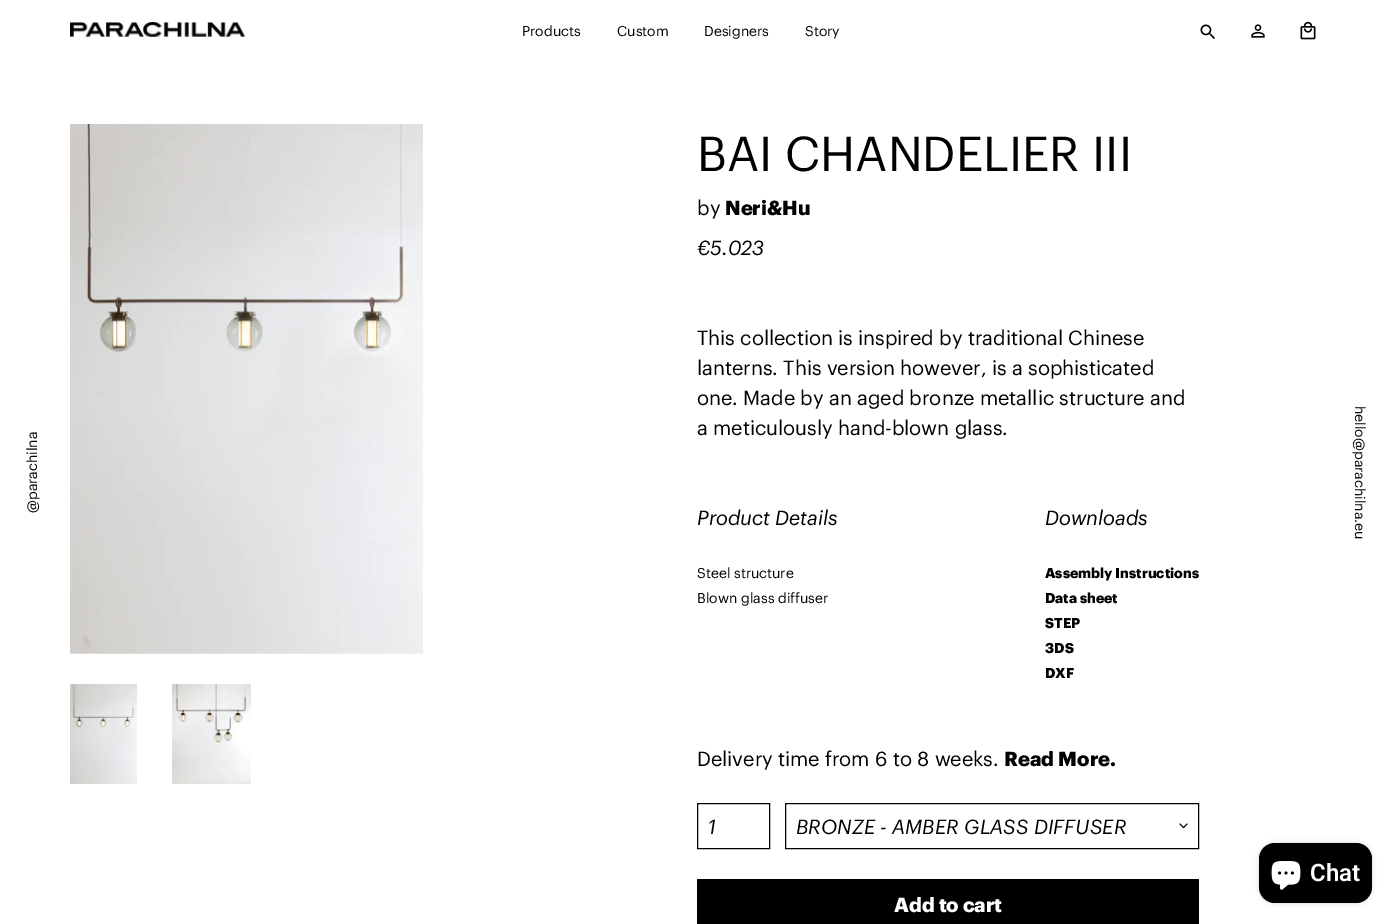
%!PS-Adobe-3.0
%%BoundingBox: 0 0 1394 924
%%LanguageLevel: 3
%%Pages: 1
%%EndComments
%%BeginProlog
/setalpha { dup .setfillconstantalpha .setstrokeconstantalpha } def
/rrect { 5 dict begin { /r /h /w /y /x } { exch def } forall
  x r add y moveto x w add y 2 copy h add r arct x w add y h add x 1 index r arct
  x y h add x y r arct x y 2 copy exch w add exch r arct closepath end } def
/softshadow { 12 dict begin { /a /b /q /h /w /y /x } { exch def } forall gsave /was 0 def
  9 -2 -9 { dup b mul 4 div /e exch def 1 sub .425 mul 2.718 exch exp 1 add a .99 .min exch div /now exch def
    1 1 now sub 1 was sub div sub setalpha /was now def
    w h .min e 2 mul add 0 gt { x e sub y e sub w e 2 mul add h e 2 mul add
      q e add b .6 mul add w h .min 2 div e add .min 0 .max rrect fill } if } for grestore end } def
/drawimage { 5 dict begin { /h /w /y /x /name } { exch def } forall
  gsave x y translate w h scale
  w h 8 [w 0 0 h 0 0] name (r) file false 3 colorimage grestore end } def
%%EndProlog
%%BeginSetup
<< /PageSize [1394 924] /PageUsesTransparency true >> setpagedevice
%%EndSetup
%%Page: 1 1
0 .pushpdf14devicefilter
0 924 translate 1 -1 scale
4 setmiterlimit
1 setgray
0 0 1394 924 rectfill
(images/1.raw) 70 22 175 15 drawimage
(images/2.raw) 1200 24 15 15 drawimage
(images/3.raw) 1251 24 14 14 drawimage
(images/4.raw) 1300 21 16 19 drawimage
(images/5.raw) 70 124 353 530 drawimage
(images/6.raw) 70 684 67 100 drawimage
(images/7.raw) 172 684 79 100 drawimage
0 setgray
697.5 803.5 72 45 rectstroke
(images/8.raw) 1179 823 9 6 drawimage
785.5 803.5 413 45 rectstroke
697 879 502 45 rectfill
1259 843 113 60 16 2.5 0.15 softshadow
1259 843 113 60 16 rrect fill
(images/9.raw) 1271 861 30 29 drawimage
/Graphik-Regular [14 0 0 -14 0 0] selectfont
522 36 moveto (Products) show
617 36 moveto (Custom) show
704 36 moveto (Designers) show
805 36 moveto (Story) show
/Graphik-Regular [48 0 0 -48 0 0] selectfont
697 171 moveto (BAI CHANDELIER III) show
/Graphik-Regular [20 0 0 -20 0 0] selectfont
697 215 moveto (by) show
/Graphik-Bold [20 0 0 -20 0 0] selectfont
725 215 moveto (Neri&Hu) show
/Graphik-Italic [20 0 0 -20 0 0] selectfont
697 255 moveto (€5.023) show
/Graphik-Regular [20 0 0 -20 0 0] selectfont
697 345 moveto (This collection is inspired by traditional Chinese) show
697 375 moveto (lanterns. This version however, is a sophisticated) show
697 405 moveto (one. Made by an aged bronze metallic structure and) show
697 435 moveto (a meticulously hand-blown glass.) show
/Graphik-Italic [20 0 0 -20 0 0] selectfont
697 525 moveto (Product Details) show
/Graphik-Regular [14 0 0 -14 0 0] selectfont
697 578 moveto (Steel structure) show
697 603 moveto (Blown glass diffuser) show
/Graphik-Italic [20 0 0 -20 0 0] selectfont
1045 525 moveto (Downloads) show
/Graphik-Bold [14 0 0 -14 0 0] selectfont
1045 578 moveto (Assembly Instructions) show
1045 603 moveto (Data sheet) show
1045 628 moveto (STEP) show
1045 653 moveto (3DS) show
1045 678 moveto (DXF) show
/Graphik-Regular [20 0 0 -20 0 0] selectfont
697 766 moveto (Delivery time from 6 to 8 weeks.) show
/Graphik-Bold [20 0 0 -20 0 0] selectfont
1004 766 moveto (Read More.) show
/Graphik-Italic [20 0 0 -20 0 0] selectfont
708 834 moveto (1) show
796 834 moveto (BRONZE - AMBER GLASS DIFFUSER) show
/Graphik-Bold [20 0 0 -20 0 0] selectfont
1 setgray
894 912 moveto (Add to cart) show
/Graphik-Regular [14 0 0 -14 0 0] selectfont
0 setgray
gsave 37 513 translate -90 rotate 0 0 moveto (@parachilna) show grestore
gsave 1355 406 translate 90 rotate 0 0 moveto (hello@parachilna.eu) show grestore
/Roboto-SemiBold [24 0 0 -24 0 0] selectfont
1 setgray
1310 881 moveto (Chat) show
.poppdf14devicefilter showpage
%%EOF
